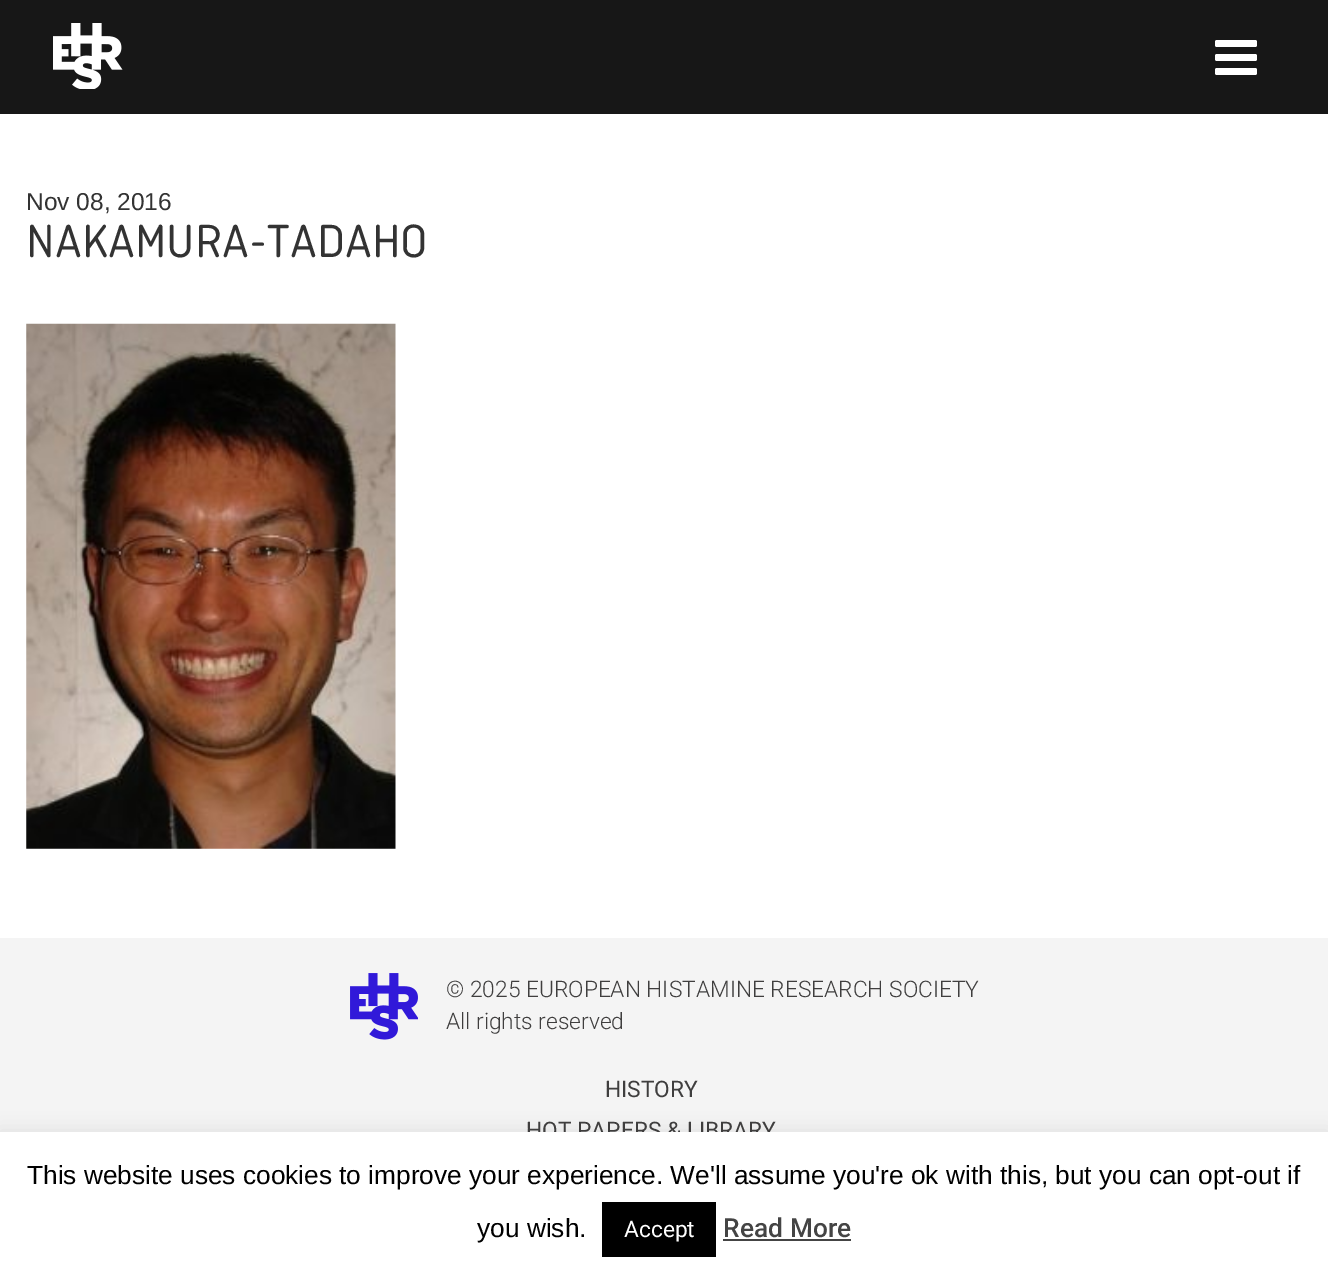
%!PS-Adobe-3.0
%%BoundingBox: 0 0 1328 1277
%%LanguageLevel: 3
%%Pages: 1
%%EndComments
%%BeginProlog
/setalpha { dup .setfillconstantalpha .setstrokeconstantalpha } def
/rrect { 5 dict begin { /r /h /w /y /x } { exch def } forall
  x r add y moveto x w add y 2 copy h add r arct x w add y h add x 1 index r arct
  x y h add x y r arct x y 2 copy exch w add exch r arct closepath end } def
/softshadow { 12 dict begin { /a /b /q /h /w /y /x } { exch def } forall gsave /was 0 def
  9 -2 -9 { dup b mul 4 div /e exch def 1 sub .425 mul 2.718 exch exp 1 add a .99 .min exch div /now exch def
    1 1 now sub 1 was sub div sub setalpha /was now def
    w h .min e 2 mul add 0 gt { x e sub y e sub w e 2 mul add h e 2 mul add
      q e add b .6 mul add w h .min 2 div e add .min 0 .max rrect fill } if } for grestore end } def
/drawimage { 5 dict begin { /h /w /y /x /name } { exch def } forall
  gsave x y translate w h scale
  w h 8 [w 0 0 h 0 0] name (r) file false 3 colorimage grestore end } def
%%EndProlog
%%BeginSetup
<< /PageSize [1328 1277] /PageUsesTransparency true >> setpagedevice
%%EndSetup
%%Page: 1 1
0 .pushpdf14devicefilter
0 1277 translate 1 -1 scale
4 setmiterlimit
1 setgray
0 0 1328 1277 rectfill
0.09 setgray
0 0 1328 114 rectfill
(images/1.raw) 53 23 70 66 drawimage
1 setgray
1215 40 42 7 2 rrect fill
1215 54 42 7 2 rrect fill
1215 68 42 7 2 rrect fill
(images/2.raw) 26 323 370 526 drawimage
0.957 setgray
0 938 1328 194 rectfill
(images/3.raw) 350 973 68 67 drawimage
0.675 0.671 0.671 setrgbcolor
0 1131 1328 145 0 9 0.3 softshadow
/LiberationSans-Regular [24.5 0 0 -24.5 0 0] selectfont
0.2 setgray
26 210 moveto (Nov 08, 2016) show
/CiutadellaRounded-Regular [49 0 0 -49 0 0] selectfont
26 257 moveto (NAKAMURA-TADAHO) show
/Roboto-Light [22.75 0 0 -22.75 0 0] selectfont
0.247 0.243 0.243 setrgbcolor
446 997 moveto (© 2025 EUROPEAN HISTAMINE RESEARCH SOCIETY) show
446 1029 moveto (All rights reserved) show
/Roboto-Regular [22.75 0 0 -22.75 0 0] selectfont
605 1097 moveto (HISTORY) show
526 1138 moveto (HOT PAPERS & LIBRARY) show
1 setgray
0 1132 1328 145 rectfill
/LiberationSans-Regular [26.25 0 0 -26.25 0 0] selectfont
0 setgray
27 1184 moveto (This website uses cookies to improve your experience. We'll assume you're ok with this, but you can opt-out if) show
477 1237 moveto (you wish.) show
602 1202 114 55 rectfill
/Roboto-Regular [22.75 0 0 -22.75 0 0] selectfont
1 setgray
624 1237 moveto (Accept) show
/Roboto-Medium [26.25 0 0 -26.25 0 0] selectfont
0.267 setgray
723 1237 moveto 1 0 32 (Read More) widthshow
723 1239 128 2 rectfill
.poppdf14devicefilter showpage
%%EOF
